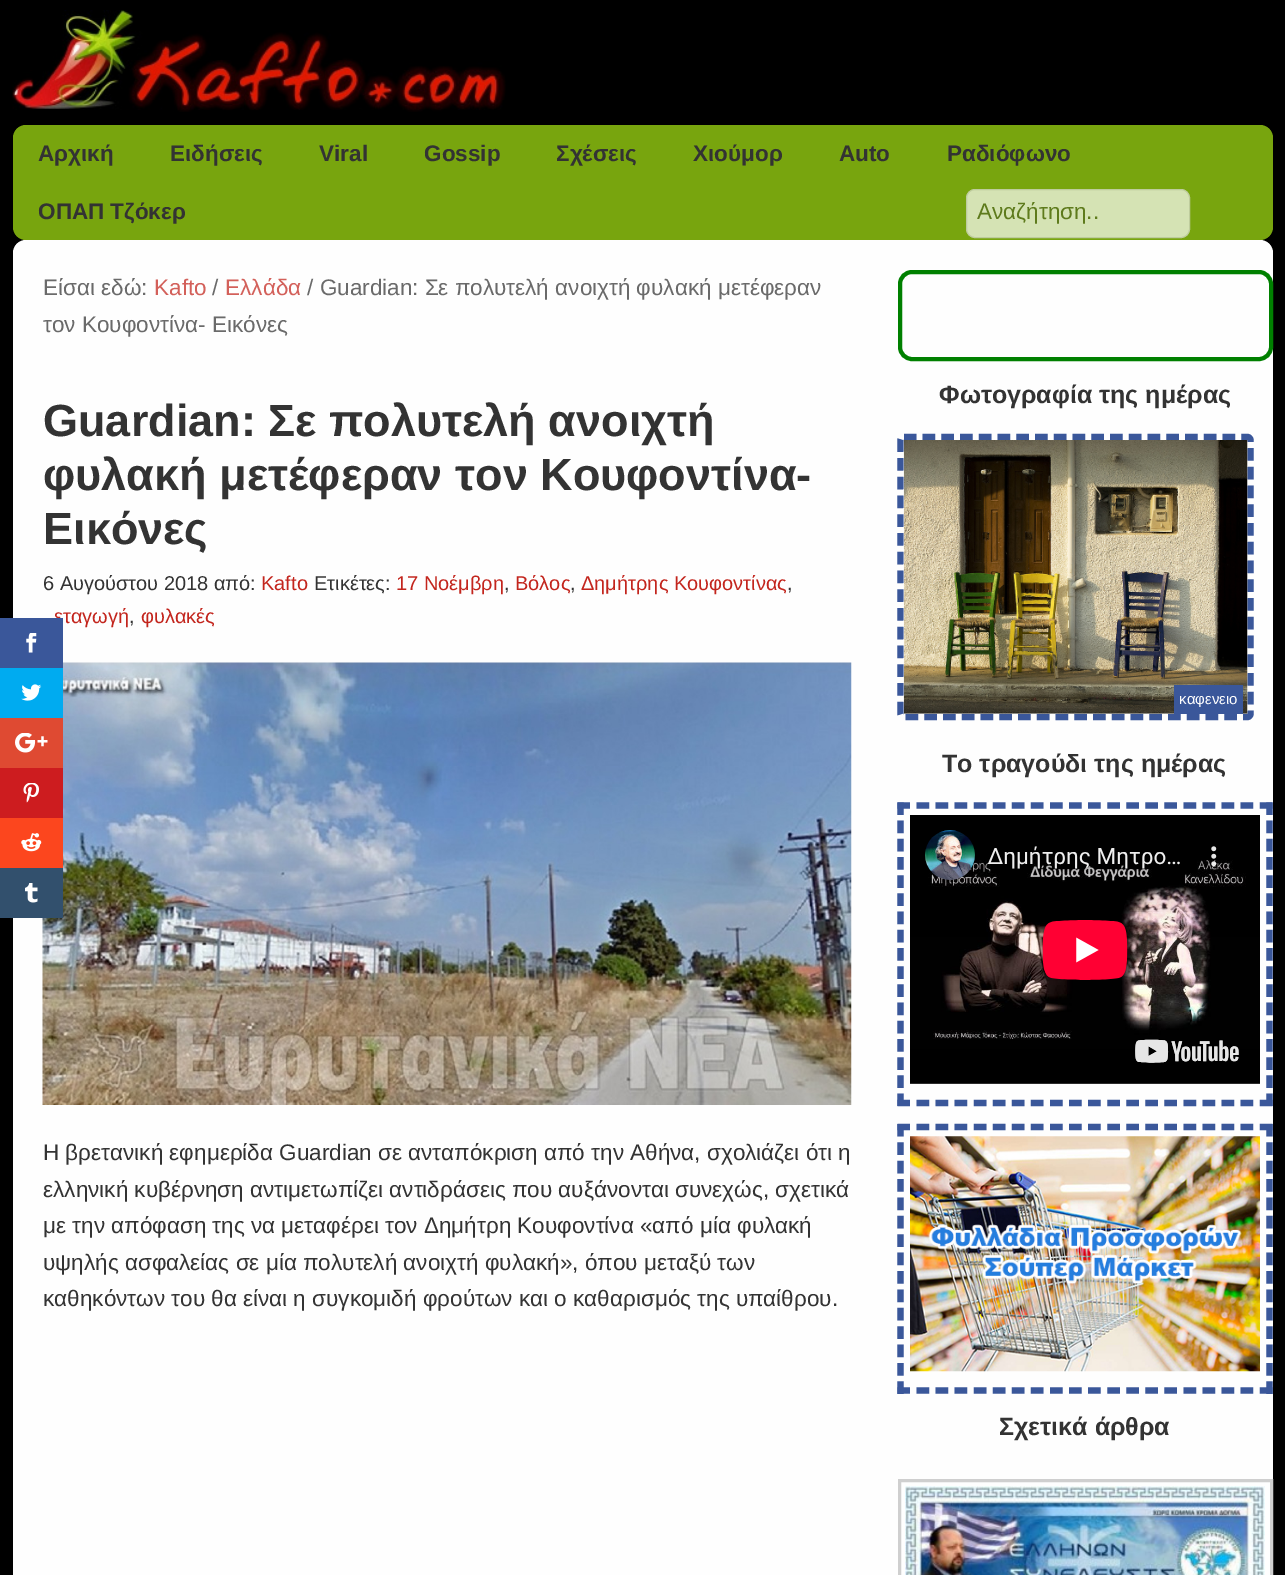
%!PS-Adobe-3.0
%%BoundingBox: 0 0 1285 1575
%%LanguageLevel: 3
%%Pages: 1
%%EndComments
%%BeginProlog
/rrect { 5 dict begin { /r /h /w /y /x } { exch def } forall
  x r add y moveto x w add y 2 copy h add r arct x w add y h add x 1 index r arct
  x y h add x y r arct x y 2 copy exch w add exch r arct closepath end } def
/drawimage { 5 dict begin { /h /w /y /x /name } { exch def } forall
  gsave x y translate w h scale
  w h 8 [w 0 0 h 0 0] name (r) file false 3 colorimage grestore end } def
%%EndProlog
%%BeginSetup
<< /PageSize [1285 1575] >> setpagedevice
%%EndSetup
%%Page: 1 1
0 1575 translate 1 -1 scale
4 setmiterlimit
0 setgray
0 0 1285 1575 rectfill
0.996 setgray
13 240 1260 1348 13 rrect fill
(images/8.raw) 42 662 810 443 drawimage
0 0.671 0.941 setrgbcolor
0 668 63 50 rectfill
(images/2.raw) 21 684 21 17 drawimage
0.875 0.29 0.196 setrgbcolor
0 718 63 50 rectfill
(images/3.raw) 15 733 33 20 drawimage
0.804 0.11 0.122 setrgbcolor
0 768 63 50 rectfill
(images/4.raw) 23 783 16 20 drawimage
0.988 0.275 0.118 setrgbcolor
0 818 63 50 rectfill
(images/5.raw) 21 833 21 19 drawimage
0.196 0.314 0.427 setrgbcolor
0 868 63 50 rectfill
(images/6.raw) 25 883 13 20 drawimage
(images/7.raw) 12 10 494 102 drawimage
0.471 0.647 0.055 setrgbcolor
13 125 1260 115 13 rrect fill
0.835 0.89 0.706 setrgbcolor
966.5 189.5 223 48 8.5 rrect gsave fill grestore
0.745 0.8 0.616 setrgbcolor
stroke
0 0.502 0 setrgbcolor
4 setlinewidth
900 272 371 87 12 rrect stroke
0.227 0.341 0.604 setrgbcolor
6.2 setlinewidth
[12.5 6.25] 0 setdash
newpath 904 437 moveto 1247.5 437 lineto 1249 437 1250.5 438.5 1250.5 440 curveto 1250.5 714 lineto 1250.5 715.5 1249 717 1247.5 717 curveto 904 717 lineto 902 717 900.5 715.5 900.5 714 curveto 900.5 440 lineto 900.5 438.5 902 437 904 437 curveto closepath stroke
(images/9.raw) 903 440 345 274 drawimage
1174 685 69 29 rectfill
[12.5 6.57] 0 setdash
newpath 897.5 805.5 moveto 1272.5 805.5 lineto stroke
[12.5 5.7] 0 setdash
newpath 1269.5 802.5 moveto 1269.5 1106 lineto stroke
[12.5 6.57] 0 setdash
newpath 897.5 1103 moveto 1272.5 1103 lineto stroke
[12.5 5.7] 0 setdash
newpath 900.5 802.5 moveto 900.5 1106 lineto stroke
(images/10.raw) 910 815 350 269 drawimage
[12.5 6.57] 0 setdash
newpath 897.5 1127 moveto 1272.5 1127 lineto stroke
[12.5 5.89] 0 setdash
newpath 1269.5 1124 moveto 1269.5 1394 lineto stroke
[12.5 6.57] 0 setdash
newpath 897.5 1390.5 moveto 1272.5 1390.5 lineto stroke
[12.5 5.89] 0 setdash
newpath 900.5 1124 moveto 900.5 1394 lineto stroke
(images/11.raw) 910 1136 350 236 drawimage
0.812 setgray
3 setlinewidth
[] 0 setdash
899.5 1480.5 372 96 rectstroke
(images/12.raw) 905 1486 360 89 drawimage
/LiberationSans-Bold [22.5 0 0 -22.5 0 0] selectfont
0.2 setgray
38 161 moveto (Αρχική) show
170 161 moveto (Ειδήσεις) show
319 161 moveto (Viral) show
424 161 moveto (Gossip) show
556 161 moveto (Σχέσεις) show
693 161 moveto (Χιούμορ) show
839 161 moveto (Auto) show
947 161 moveto (Ραδιόφωνο) show
38 219 moveto (ΟΠΑΠ Τζόκερ) show
/LiberationSans-Regular [22.5 0 0 -22.5 0 0] selectfont
0.369 0.482 0.11 setrgbcolor
977 219 moveto (Αναζήτηση..) show
0.416 setgray
43 295 moveto (Είσαι εδώ:) show
0.827 0.376 0.353 setrgbcolor
154 295 moveto (Kafto) show
0.416 setgray
212 295 moveto (/) show
0.827 0.376 0.353 setrgbcolor
225 295 moveto (Ελλάδα) show
0.416 setgray
307 295 moveto (/ Guardian: Σε πολυτελή ανοιχτή φυλακή μετέφεραν) show
43 332 moveto (τον Κουφοντίνα- Εικόνες) show
/LiberationSans-Bold [45 0 0 -45 0 0] selectfont
0.2 setgray
43 436 moveto (Guardian: Σε πολυτελή ανοιχτή) show
43 490 moveto (φυλακή μετέφεραν τον Κουφοντίνα-) show
43 544 moveto (Εικόνες) show
/LiberationSans-Regular [20 0 0 -20 0 0] selectfont
43 590 moveto (6 Αυγούστου 2018 από:) show
0.765 0.145 0.114 setrgbcolor
261 590 moveto (Kafto) show
0.2 setgray
314 590 moveto (Ετικέτες:) show
0.765 0.145 0.114 setrgbcolor
396 590 moveto (17 Νοέμβρη) show
0.2 setgray
504 590 moveto (,) show
0.765 0.145 0.114 setrgbcolor
515 590 moveto (Βόλος) show
0.2 setgray
570 590 moveto (,) show
0.765 0.145 0.114 setrgbcolor
581 590 moveto (Δημήτρης Κουφοντίνας) show
0.2 setgray
787 590 moveto (,) show
0.765 0.145 0.114 setrgbcolor
54 623 moveto (εταγωγή) show
0.227 0.341 0.604 setrgbcolor
0 618 63 50 rectfill
(images/1.raw) 26 633 11 20 drawimage
0.2 setgray
129 623 moveto (,) show
0.765 0.145 0.114 setrgbcolor
141 623 moveto (φυλακές) show
/LiberationSans-Regular [22.5 0 0 -22.5 0 0] selectfont
0.2 setgray
43 1160 moveto (Η βρετανική εφημερίδα Guardian σε ανταπόκριση από την Αθήνα, σχολιάζει ότι η) show
43 1197 moveto (ελληνική κυβέρνηση αντιμετωπίζει αντιδράσεις που αυξάνονται συνεχώς, σχετικά) show
43 1233 moveto (με την απόφαση της να μεταφέρει τον Δημήτρη Κουφοντίνα «από μία φυλακή) show
43 1270 moveto (υψηλής ασφαλείας σε μία πολυτελή ανοιχτή φυλακή», όπου μεταξύ των) show
43 1306 moveto (καθηκόντων του θα είναι η συγκομιδή φρούτων και ο καθαρισμός της υπαίθρου.) show
/LiberationSans-Bold [25 0 0 -25 0 0] selectfont
939 403 moveto (Φωτογραφία της ημέρας) show
/LiberationSans-Regular [15 0 0 -15 0 0] selectfont
1 setgray
1179 704 moveto (καφενειο) show
/LiberationSans-Bold [25 0 0 -25 0 0] selectfont
0.2 setgray
942 772 moveto (Το τραγούδι της ημέρας) show
999 1435 moveto (Σχετικά άρθρα) show
showpage
%%EOF
